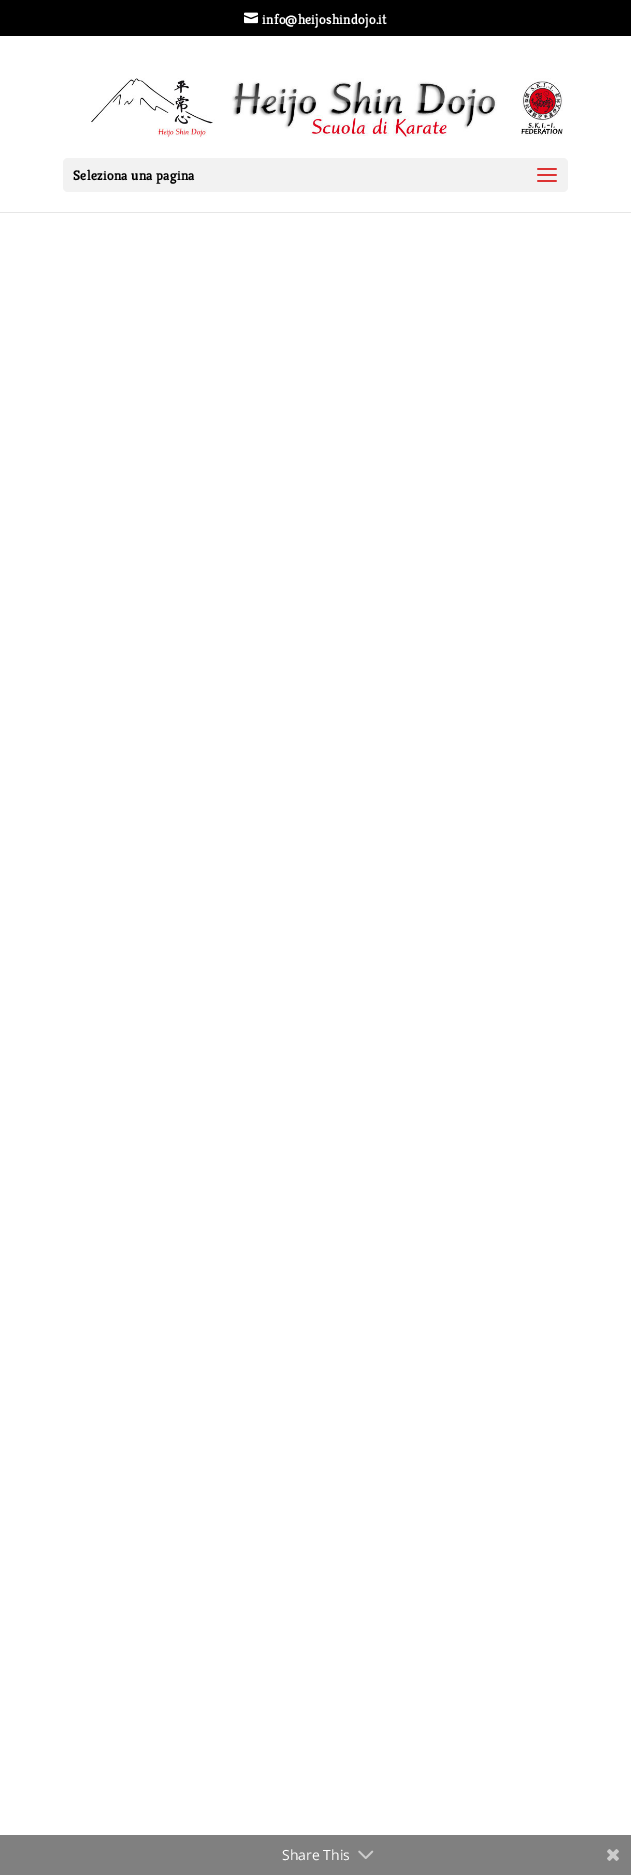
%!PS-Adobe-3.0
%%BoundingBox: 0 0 631 1875
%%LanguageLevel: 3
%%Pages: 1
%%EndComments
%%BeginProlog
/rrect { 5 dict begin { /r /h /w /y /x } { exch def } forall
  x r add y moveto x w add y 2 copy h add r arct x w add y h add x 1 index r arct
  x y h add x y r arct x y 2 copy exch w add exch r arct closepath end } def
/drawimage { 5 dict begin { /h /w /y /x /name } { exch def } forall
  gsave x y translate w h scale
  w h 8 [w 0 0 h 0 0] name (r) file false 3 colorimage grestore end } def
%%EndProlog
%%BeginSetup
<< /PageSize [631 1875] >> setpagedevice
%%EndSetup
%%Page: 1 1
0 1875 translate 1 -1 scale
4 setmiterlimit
1 setgray
0 0 631 1875 rectfill
0 setgray
0 0 631 36 rectfill
(images/1.raw) 244 12 14 12 drawimage
0.902 setgray
0 212 631 1 rectfill
(images/2.raw) 91 78 472 60 drawimage
0.949 setgray
63 158 505 34 5 rrect fill
(images/3.raw) 537 168 20 14 drawimage
0.502 setgray
0 1835 631 40 rectfill
(images/4.raw) 358 1850 16 9 drawimage
(images/5.raw) 607 1849 12 12 drawimage
/Kreon-SemiBold [14 0 0 -14 0 0] selectfont
1 setgray
262 24 moveto (info@heijoshindojo.it) show
0 setgray
73 180 moveto (Seleziona una pagina) show
/OpenSans-Regular [14 0 0 -14 0 0] selectfont
1 setgray
282 1860 moveto (Share This) show
showpage
%%EOF
